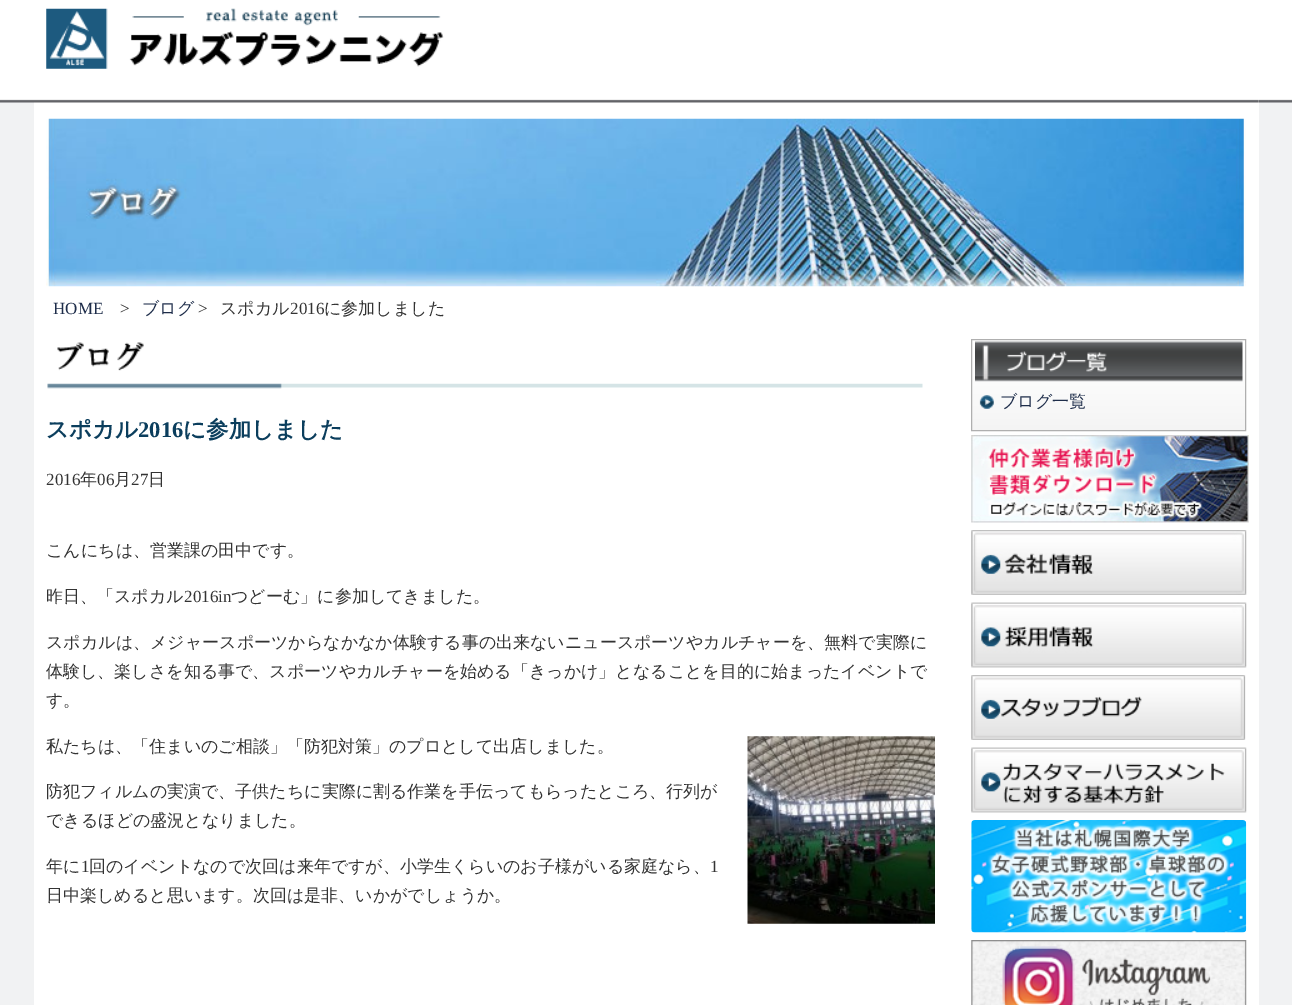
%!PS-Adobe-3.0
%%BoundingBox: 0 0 1292 1005
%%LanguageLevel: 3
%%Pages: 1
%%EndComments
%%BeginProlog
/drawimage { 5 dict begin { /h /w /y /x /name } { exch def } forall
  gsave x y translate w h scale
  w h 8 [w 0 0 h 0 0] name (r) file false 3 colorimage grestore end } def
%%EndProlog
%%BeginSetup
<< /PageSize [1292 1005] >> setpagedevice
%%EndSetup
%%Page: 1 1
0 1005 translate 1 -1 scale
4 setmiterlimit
0.945 0.949 0.953 setrgbcolor
0 0 1292 1005 rectfill
(images/1.raw) 0 0 1292 103 drawimage
1 setgray
34 99 1225 906 rectfill
(images/2.raw) 34 99 1225 4 drawimage
(images/3.raw) 46 8 398 61 drawimage
(images/4.raw) 46 118 1200 169 drawimage
(images/5.raw) 972 340 273 90 drawimage
0.686 setgray
971.5 339.5 274 91 rectstroke
(images/6.raw) 975 341 268 41 drawimage
(images/7.raw) 979 395 15 14 drawimage
(images/8.raw) 971 435 278 88 drawimage
(images/9.raw) 971 530 276 65 drawimage
(images/10.raw) 971 602 276 66 drawimage
(images/11.raw) 971 675 275 65 drawimage
(images/12.raw) 971 747 276 66 drawimage
(images/13.raw) 971 820 276 113 drawimage
(images/14.raw) 971 940 276 65 drawimage
(images/15.raw) 47 342 876 47 drawimage
(images/16.raw) 747 736 188 188 drawimage
/LiberationSerif-Regular [17 0 0 -17 0 0] selectfont
0.118 0.176 0.29 setrgbcolor
53 314 moveto (HOME) show
0.2 setgray
120 314 moveto (>) show
/WenQuanYiZenHei-Medium [17 0 0 -17 0 0] selectfont
0.118 0.176 0.29 setrgbcolor
142 314 moveto (ブログ) show
/LiberationSerif-Regular [17 0 0 -17 0 0] selectfont
0.2 setgray
198 314 moveto (>) show
/WenQuanYiZenHei-Medium [17 0 0 -17 0 0] selectfont
220 314 moveto (スポカル) show
/LiberationSerif-Regular [17 0 0 -17 0 0] selectfont
290 314 moveto (2016) show
/WenQuanYiZenHei-Medium [17 0 0 -17 0 0] selectfont
324 314 moveto (に参加しました) show
0.118 0.176 0.29 setrgbcolor
1000 407 moveto (ブログ一覧) show
/WenQuanYiZenHei-Bold [22.5 0 0 -22.5 0 0] selectfont
0.043 0.243 0.365 setrgbcolor
46 437 moveto (スポカル) show
/LiberationSerif-Bold [22.5 0 0 -22.5 0 0] selectfont
138 437 moveto (2016) show
/WenQuanYiZenHei-Bold [22.5 0 0 -22.5 0 0] selectfont
183 437 moveto (に参加しました) show
/LiberationSerif-Regular [17 0 0 -17 0 0] selectfont
0.2 setgray
46 485 moveto (2016) show
/WenQuanYiZenHei-Medium [17 0 0 -17 0 0] selectfont
80 485 moveto (年) show
/LiberationSerif-Regular [17 0 0 -17 0 0] selectfont
97 485 moveto (06) show
/WenQuanYiZenHei-Medium [17 0 0 -17 0 0] selectfont
114 485 moveto (月) show
/LiberationSerif-Regular [17 0 0 -17 0 0] selectfont
131 485 moveto (27) show
/WenQuanYiZenHei-Medium [17 0 0 -17 0 0] selectfont
148 485 moveto (日) show
46 556 moveto (こんにちは、営業課の田中です。) show
46 602 moveto (昨日、「スポカル) show
/LiberationSerif-Regular [17 0 0 -17 0 0] selectfont
184 602 moveto (2016in) show
/WenQuanYiZenHei-Medium [17 0 0 -17 0 0] selectfont
231 602 moveto (つどーむ」に参加してきました。) show
46 648 moveto (スポカルは、メジャースポーツからなかなか体験する事の出来ないニュースポーツやカルチャーを、無料で実際に) show
46 677 moveto (体験し、楽しさを知る事で、スポーツやカルチャーを始める「きっかけ」となることを目的に始まったイベントで) show
46 706 moveto (す。) show
46 752 moveto (私たちは、「住まいのご相談」「防犯対策」のプロとして出店しました。) show
46 797 moveto (防犯フィルムの実演で、子供たちに実際に割る作業を手伝ってもらったところ、行列が) show
46 826 moveto (できるほどの盛況となりました。) show
46 872 moveto (年に) show
/LiberationSerif-Regular [17 0 0 -17 0 0] selectfont
81 872 moveto (1) show
/WenQuanYiZenHei-Medium [17 0 0 -17 0 0] selectfont
89 872 moveto (回のイベントなので次回は来年ですが、小学生くらいのお子様がいる家庭なら、) show
/LiberationSerif-Regular [17 0 0 -17 0 0] selectfont
710 872 moveto (1) show
/WenQuanYiZenHei-Medium [17 0 0 -17 0 0] selectfont
46 901 moveto (日中楽しめると思います。次回は是非、いかがでしょうか。) show
showpage
%%EOF
